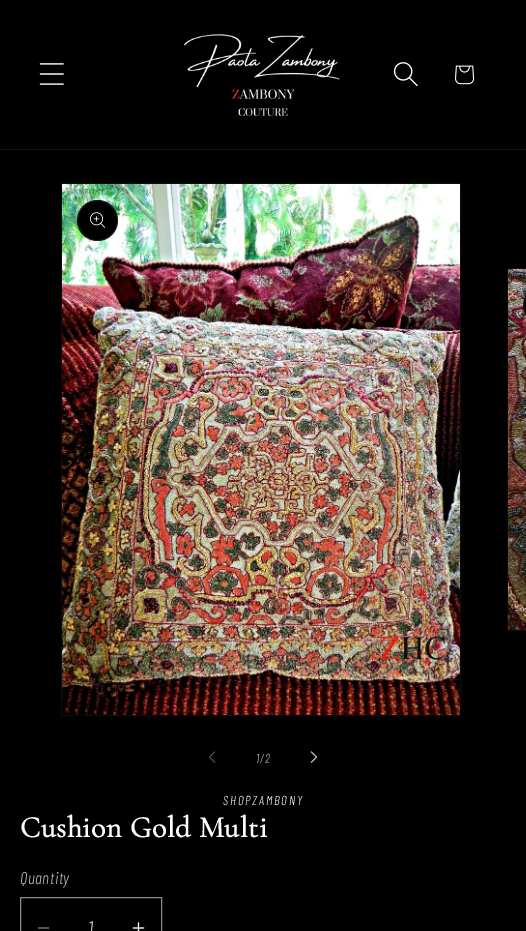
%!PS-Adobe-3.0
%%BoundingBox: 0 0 526 931
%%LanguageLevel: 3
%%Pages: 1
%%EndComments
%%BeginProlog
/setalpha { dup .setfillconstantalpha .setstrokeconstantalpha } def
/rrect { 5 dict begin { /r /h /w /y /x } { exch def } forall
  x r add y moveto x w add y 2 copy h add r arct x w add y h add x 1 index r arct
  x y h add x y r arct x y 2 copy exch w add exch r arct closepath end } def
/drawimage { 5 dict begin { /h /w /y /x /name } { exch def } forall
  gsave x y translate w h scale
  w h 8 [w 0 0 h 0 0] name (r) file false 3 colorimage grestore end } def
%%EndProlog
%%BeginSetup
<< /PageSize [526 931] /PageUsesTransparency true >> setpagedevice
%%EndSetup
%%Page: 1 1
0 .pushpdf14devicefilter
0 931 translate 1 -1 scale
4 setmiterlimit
0 setgray
0 0 526 931 rectfill
0.078 setgray
0 149 526 1 rectfill
(images/1.raw) 39 63 25 22 drawimage
(images/2.raw) 184 34 156 83 drawimage
(images/3.raw) 393 62 25 25 drawimage
(images/4.raw) 455 65 20 20 drawimage
0.051 setgray
61.5 183.5 399 532 rectstroke
(images/5.raw) 62 184 398 531 drawimage
0 setgray
newpath 97.5 220.5 20.5 0 360 arc closepath fill
0.1 setalpha
1 setgray
newpath 97.5 220.5 20 0 360 arc closepath stroke
1 setalpha
(images/6.raw) 90 212 15 16 drawimage
0.051 setgray
507.5 268.5 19 362 rectstroke
(images/7.raw) 508 269 18 361 drawimage
0 setgray
newpath 543.5 285 moveto 526 285 lineto 526 326 lineto 543.5 326 lineto 532 326 523 317 523 305.5 curveto 523 294 532 285 543.5 285 curveto closepath fill
0.1 setalpha
1 setgray
523.5 285.5 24 40 20 rrect stroke
1 setalpha
(images/8.raw) 209 751 7 12 drawimage
(images/9.raw) 310 751 8 12 drawimage
(images/10.raw) 37 927 13 2 drawimage
(images/11.raw) 132 922 13 9 drawimage
0.549 setgray
20.5 897.5 141 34 rectstroke
/BarlowCondensed-LightItalic [13 0 0 -13 0 0] selectfont
0.749 setgray
256 763 moveto 1 0 (1/2) ashow
1 setgray
223 805 moveto 1.75 0 (SHOPZAMBONY) ashow
/Cormorant-Bold [30 0 0 -30 0 0] selectfont
20 837 moveto 0.6 0 (Cushion Gold Multi) ashow
/BarlowCondensed-LightItalic [17 0 0 -17 0 0] selectfont
0.749 setgray
20 884 moveto 0.5 0 (Quantity) ashow
/BarlowCondensed-LightItalic [21 0 0 -21 0 0] selectfont
0.851 setgray
88 936 moveto (1) show
.poppdf14devicefilter showpage
%%EOF
